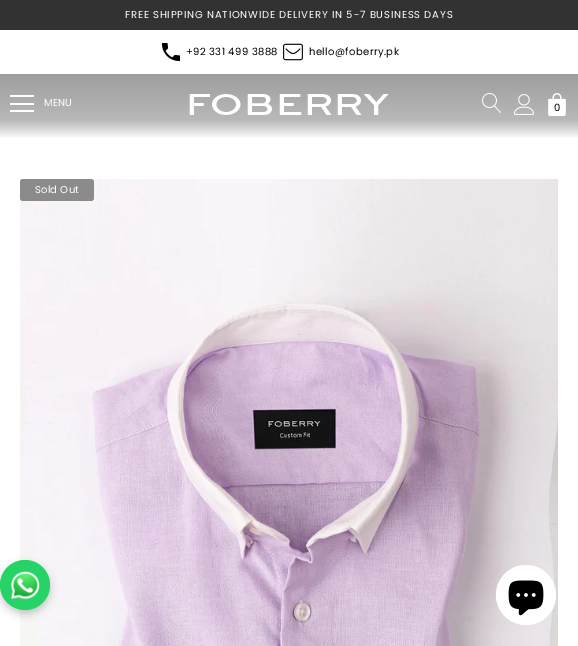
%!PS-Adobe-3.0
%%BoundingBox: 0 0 578 646
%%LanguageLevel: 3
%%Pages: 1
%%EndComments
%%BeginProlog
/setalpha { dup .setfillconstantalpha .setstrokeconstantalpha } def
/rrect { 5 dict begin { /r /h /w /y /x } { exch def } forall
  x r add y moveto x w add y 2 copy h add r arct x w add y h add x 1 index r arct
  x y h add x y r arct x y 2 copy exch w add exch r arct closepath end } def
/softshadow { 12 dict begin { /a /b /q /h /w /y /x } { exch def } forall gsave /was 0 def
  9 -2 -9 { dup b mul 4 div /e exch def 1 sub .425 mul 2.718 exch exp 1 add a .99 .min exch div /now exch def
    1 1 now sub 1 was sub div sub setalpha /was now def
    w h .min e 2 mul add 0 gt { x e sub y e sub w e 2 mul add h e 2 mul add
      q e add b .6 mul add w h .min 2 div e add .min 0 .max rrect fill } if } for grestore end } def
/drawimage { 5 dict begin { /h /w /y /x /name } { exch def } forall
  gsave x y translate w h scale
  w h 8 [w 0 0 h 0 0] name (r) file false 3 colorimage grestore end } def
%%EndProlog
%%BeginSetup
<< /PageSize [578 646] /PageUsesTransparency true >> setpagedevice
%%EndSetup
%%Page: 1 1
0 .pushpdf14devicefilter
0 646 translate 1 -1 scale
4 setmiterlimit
1 setgray
0 0 578 646 rectfill
0.196 setgray
0 0 578 30 rectfill
(images/1.raw) 162 43 18 18 drawimage
(images/2.raw) 283 43 20 18 drawimage
gsave newpath 0 74 moveto 578 74 lineto 578 138 lineto 0 138 lineto closepath clip newpath
<< /ShadingType 2 /ColorSpace /DeviceRGB /Coords [289 74 289 139] /Extend [true true] /Function << /FunctionType 3 /Domain [0 1] /Functions [<< /FunctionType 2 /Domain [0 1] /C0 [0.62 0.62 0.62] /C1 [0.722 0.722 0.722] /N 1 >> << /FunctionType 2 /Domain [0 1] /C0 [0.722 0.722 0.722] /C1 [0.878 0.878 0.878] /N 1 >> << /FunctionType 2 /Domain [0 1] /C0 [0.878 0.878 0.878] /C1 [1 1 1] /N 1 >>] /Bounds [0.71 0.88] /Encode [0 1 0 1 0 1] >> >> shfill grestore
1 setgray
10 95 24 2 rectfill
10 103 24 2 rectfill
10 110 24 2 rectfill
(images/3.raw) 189 94 200 21 drawimage
(images/4.raw) 482 93 19 20 drawimage
(images/5.raw) 514 94 20 21 drawimage
(images/6.raw) 548 93 18 23 drawimage
(images/7.raw) 20 179 538 467 drawimage
0.545 setgray
20 179 74 22 3 rrect fill
0 setgray
0 564 50 50 25 4 0.2 softshadow
0.145 0.827 0.4 setrgbcolor
newpath 25 585 25 0 360 arc closepath fill
(images/8.raw) 11 571 29 29 drawimage
1 setgray
newpath 526 595 30 0 360 arc closepath fill
(images/9.raw) 508 580 36 36 drawimage
/Poppins-Regular [10 0 0 -10 0 0] selectfont
125 18 moveto 0.8 0 (FREE SHIPPING NATIONWIDE DELIVERY IN 5-7 BUSINESS DAYS) ashow
0 setgray
186 55 moveto 0.4 0 (+92 331 499 3888) ashow
309 55 moveto 0.4 0 (hello@foberry.pk) ashow
1 setgray
44 106 moveto (MENU) show
0 setgray
554 111 moveto (0) show
1 setgray
35 193 moveto 0.25 0 (Sold Out) ashow
.poppdf14devicefilter showpage
%%EOF
